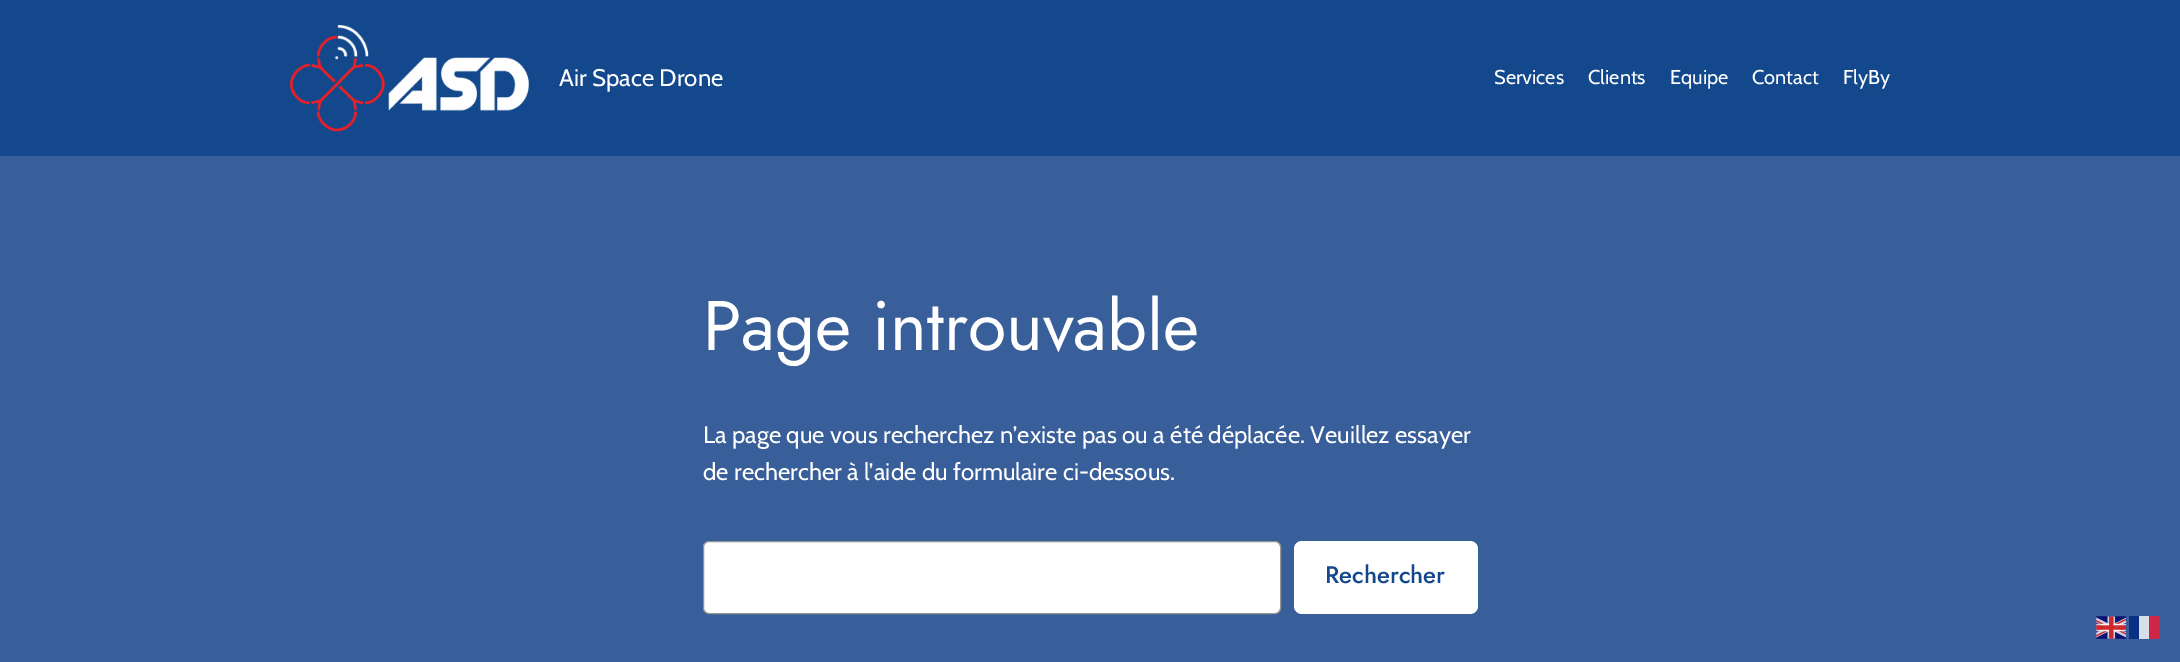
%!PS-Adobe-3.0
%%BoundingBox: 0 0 2180 662
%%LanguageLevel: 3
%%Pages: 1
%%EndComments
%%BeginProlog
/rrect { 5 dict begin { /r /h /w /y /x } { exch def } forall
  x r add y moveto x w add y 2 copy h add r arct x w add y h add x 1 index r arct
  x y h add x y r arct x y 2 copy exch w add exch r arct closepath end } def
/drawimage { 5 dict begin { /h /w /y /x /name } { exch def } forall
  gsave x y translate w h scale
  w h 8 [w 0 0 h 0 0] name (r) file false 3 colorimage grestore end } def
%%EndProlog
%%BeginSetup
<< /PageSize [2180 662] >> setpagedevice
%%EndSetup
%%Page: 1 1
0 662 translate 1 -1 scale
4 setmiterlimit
0.22 0.373 0.604 setrgbcolor
0 0 2180 662 rectfill
0.078 0.282 0.553 setrgbcolor
0 0 2180 156 rectfill
(images/1.raw) 290 25 239 107 drawimage
1 setgray
703.5 541.5 577 72 5.5 rrect gsave fill grestore
0.58 setgray
stroke
1 setgray
1294 541 184 73 8 rrect fill
(images/2.raw) 2096 616 30 23 drawimage
0.043 0.192 0.518 setrgbcolor
2129 616 10 23 rectfill
0.843 0.875 0.922 setrgbcolor
2139 616 10 23 rectfill
0.808 0.149 0.271 setrgbcolor
2149 616 10 23 rectfill
/Cabin-Regular [24 0 0 -24 0 0] selectfont
1 setgray
559 86 moveto (Air Space Drone) show
/Cabin-Regular [20 0 0 -20 0 0] selectfont
1494 84 moveto (Services) show
1588 84 moveto (Clients) show
1670 84 moveto (Equipe) show
1752 84 moveto (Contact) show
1843 84 moveto (FlyBy) show
/Jost-Regular [70 0 0 -70 0 0] selectfont
703 350 moveto (Page introuvable) show
/Cabin-Regular [24 0 0 -24 0 0] selectfont
703 443 moveto (La page que vous recherchez n’existe pas ou a été déplacée. Veuillez essayer) show
703 480 moveto (de rechercher à l’aide du formulaire ci-dessous.) show
/Jost-Medium [24 0 0 -24 0 0] selectfont
0.078 0.282 0.553 setrgbcolor
1325 583 moveto (Rechercher) show
showpage
%%EOF
